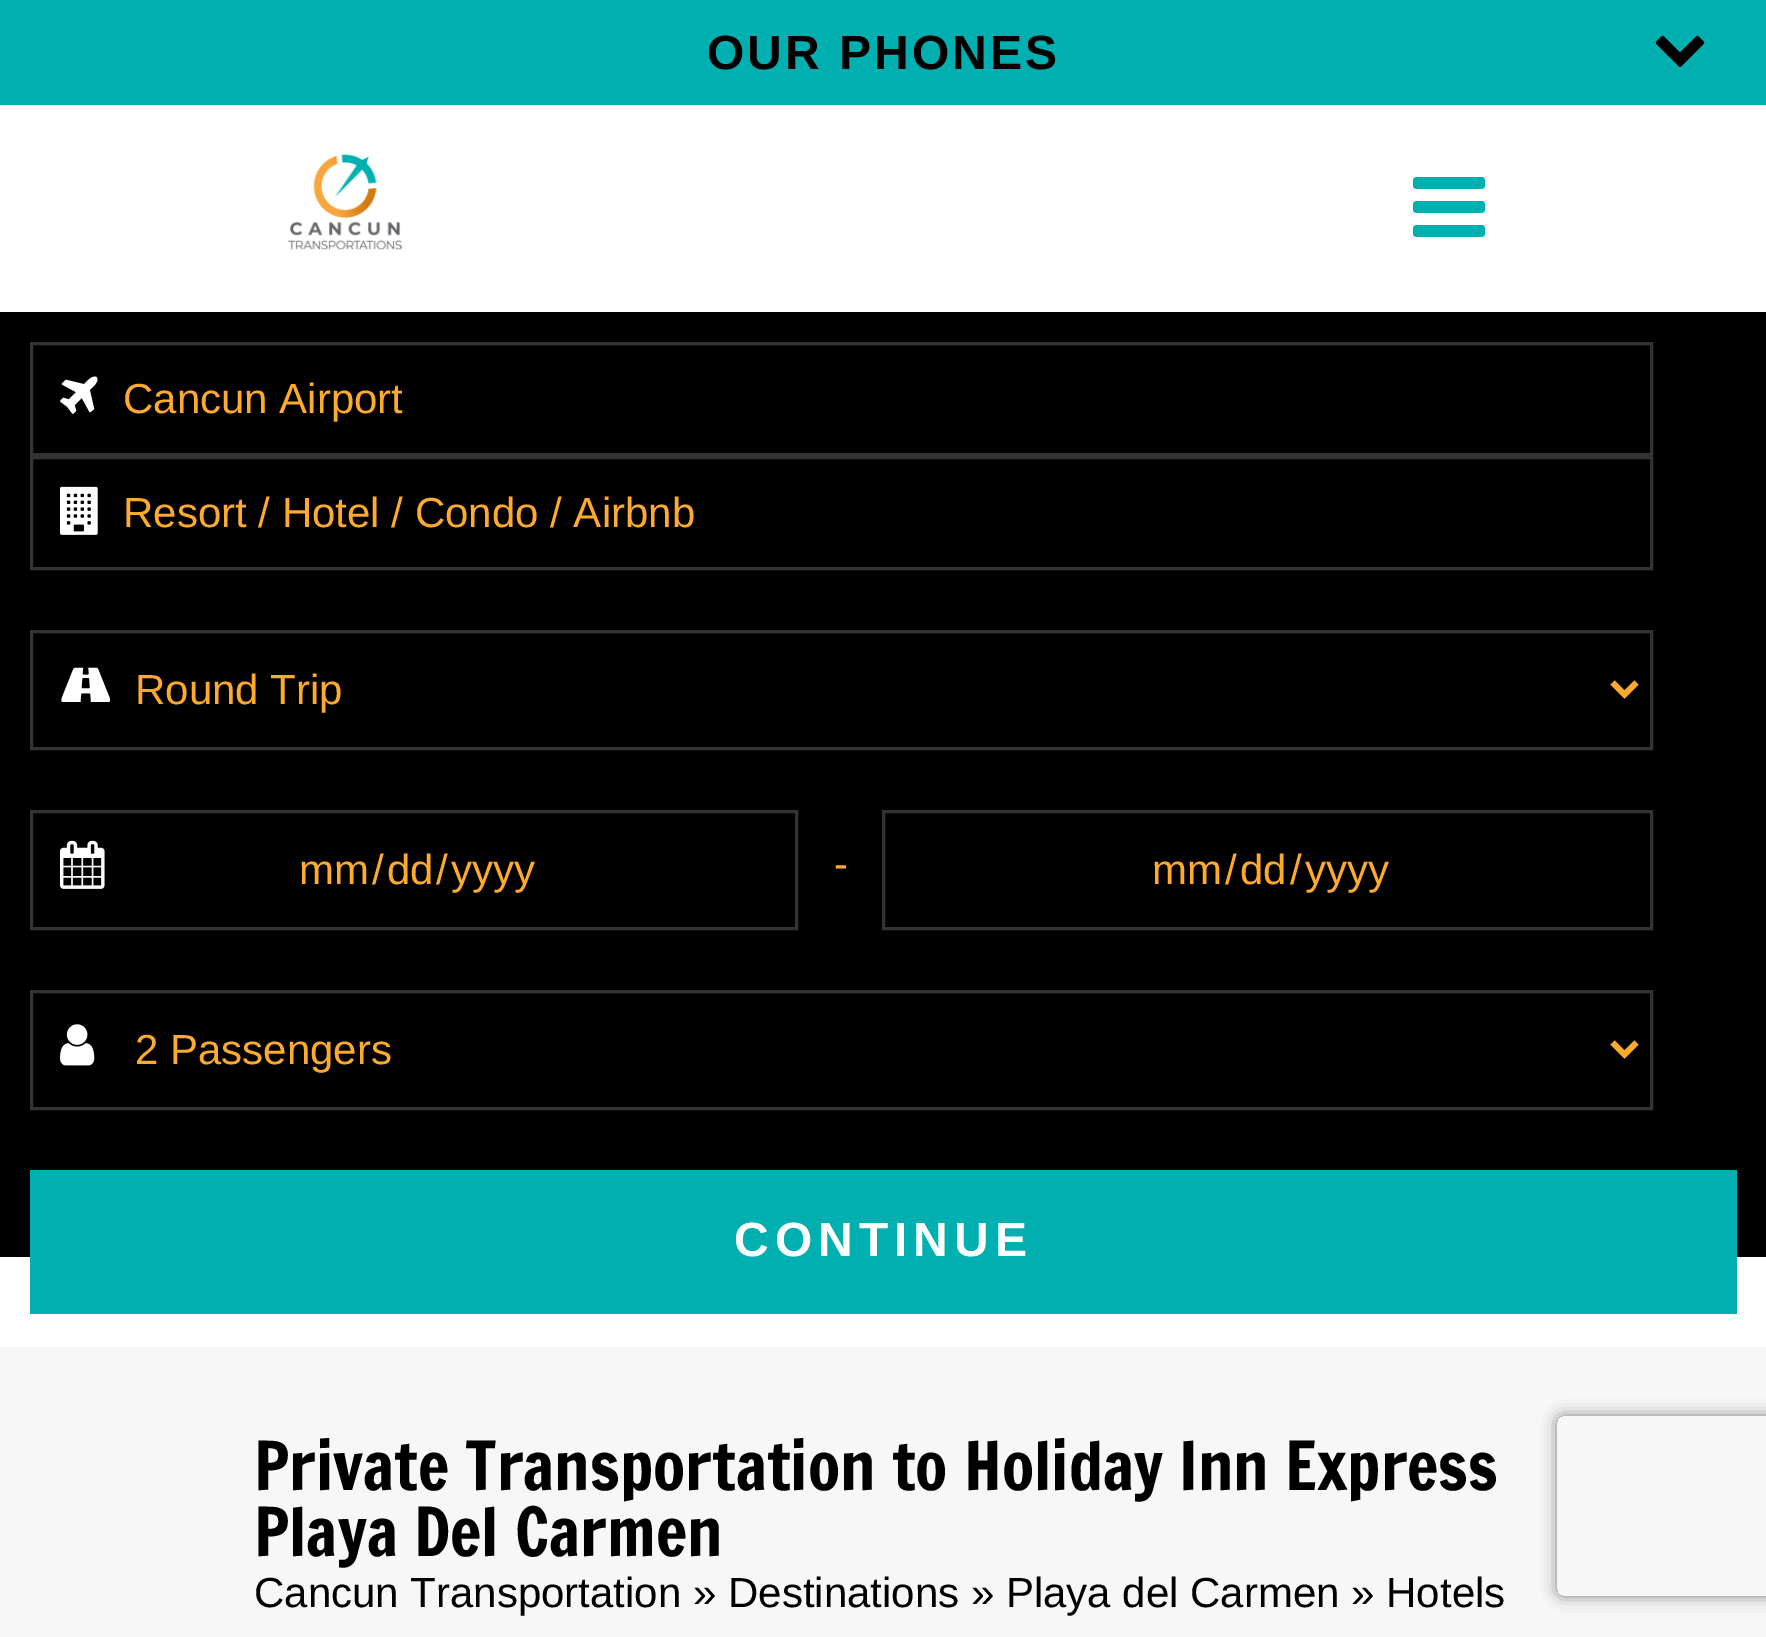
%!PS-Adobe-3.0
%%BoundingBox: 0 0 1766 1637
%%LanguageLevel: 3
%%Pages: 1
%%EndComments
%%BeginProlog
/setalpha { dup .setfillconstantalpha .setstrokeconstantalpha } def
/rrect { 5 dict begin { /r /h /w /y /x } { exch def } forall
  x r add y moveto x w add y 2 copy h add r arct x w add y h add x 1 index r arct
  x y h add x y r arct x y 2 copy exch w add exch r arct closepath end } def
/softshadow { 12 dict begin { /a /b /q /h /w /y /x } { exch def } forall gsave /was 0 def
  9 -2 -9 { dup b mul 4 div /e exch def 1 sub .425 mul 2.718 exch exp 1 add a .99 .min exch div /now exch def
    1 1 now sub 1 was sub div sub setalpha /was now def
    w h .min e 2 mul add 0 gt { x e sub y e sub w e 2 mul add h e 2 mul add
      q e add b .6 mul add w h .min 2 div e add .min 0 .max rrect fill } if } for grestore end } def
/drawimage { 5 dict begin { /h /w /y /x /name } { exch def } forall
  gsave x y translate w h scale
  w h 8 [w 0 0 h 0 0] name (r) file false 3 colorimage grestore end } def
%%EndProlog
%%BeginSetup
<< /PageSize [1766 1637] /PageUsesTransparency true >> setpagedevice
%%EndSetup
%%Page: 1 1
0 .pushpdf14devicefilter
0 1637 translate 1 -1 scale
4 setmiterlimit
1 setgray
0 0 1766 1637 rectfill
0 0.69 0.69 setrgbcolor
0 0 1766 105 rectfill
(images/1.raw) 1655 35 50 32 drawimage
(images/2.raw) 288 154 115 96 drawimage
(images/3.raw) 1413 177 72 60 drawimage
0 setgray
0 312 1766 945 rectfill
0.2 setgray
3 setlinewidth
31.5 343.5 1620 111 rectstroke
(images/4.raw) 60 376 38 38 drawimage
31.5 457.5 1620 111 rectstroke
(images/5.raw) 60 486 38 49 drawimage
31.5 631.5 1620 117 rectstroke
(images/6.raw) 61 667 50 35 drawimage
0.992 0.667 0.176 setrgbcolor
6 setlinewidth
newpath 1612.5 682.5 moveto 1624.5 694.5 lineto 1636.5 682.5 lineto stroke
0.2 setgray
3 setlinewidth
31.5 811.5 765 117 rectstroke
(images/7.raw) 60 840 45 49 drawimage
883.5 811.5 768 117 rectstroke
31.5 991.5 1620 117 rectstroke
(images/8.raw) 60 1024 35 42 drawimage
0.992 0.667 0.176 setrgbcolor
6 setlinewidth
newpath 1612.5 1042.5 moveto 1624.5 1054.5 lineto 1636.5 1042.5 lineto stroke
0 0.69 0.69 setrgbcolor
30 1170 1707 144 rectfill
0.969 setgray
0 1347 1766 290 rectfill
gsave
newpath 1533 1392 moveto 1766 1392 lineto 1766 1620 lineto 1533 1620 lineto closepath 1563 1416 moveto 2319 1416 lineto 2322.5 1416 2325 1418.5 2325 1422 curveto 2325 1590 lineto 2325 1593.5 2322.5 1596 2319 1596 curveto 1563 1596 lineto 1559.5 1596 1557 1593.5 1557 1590 curveto 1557 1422 lineto 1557 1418.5 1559.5 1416 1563 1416 curveto closepath eoclip newpath
0.502 setgray
1557 1416 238 180 6 7.5 1 softshadow
grestore
/LiberationSans-Bold [48 0 0 -48 0 0] selectfont
0 setgray
707 69 moveto 3 0 (OUR PHONES) ashow
/LiberationSans-Regular [42 0 0 -42 0 0] selectfont
0.992 0.667 0.176 setrgbcolor
123 413 moveto (Cancun Airport) show
123 527 moveto (Resort / Hotel / Condo / Airbnb) show
135 704 moveto (Round Trip) show
299 884 moveto (mm) show
372 884 moveto (/) show
387 884 moveto (dd) show
436 884 moveto (/) show
451 884 moveto (yyyy) show
834 878 moveto (-) show
1152 884 moveto (mm) show
1225 884 moveto (/) show
1240 884 moveto (dd) show
1290 884 moveto (/) show
1305 884 moveto (yyyy) show
135 1064 moveto (2 Passengers) show
/LiberationSans-Bold [48 0 0 -48 0 0] selectfont
1 setgray
734 1256 moveto 6 0 (CONTINUE) ashow
/FrancoisOne-Regular [66 0 0 -66 0 0] selectfont
0 setgray
254 1490 moveto (Private Transportation to Holiday Inn Express) show
254 1556 moveto (Playa Del Carmen) show
/LiberationSans-Regular [42 0 0 -42 0 0] selectfont
254 1607 moveto (Cancun Transportation » Destinations » Playa del Carmen » Hotels) show
.poppdf14devicefilter showpage
%%EOF
